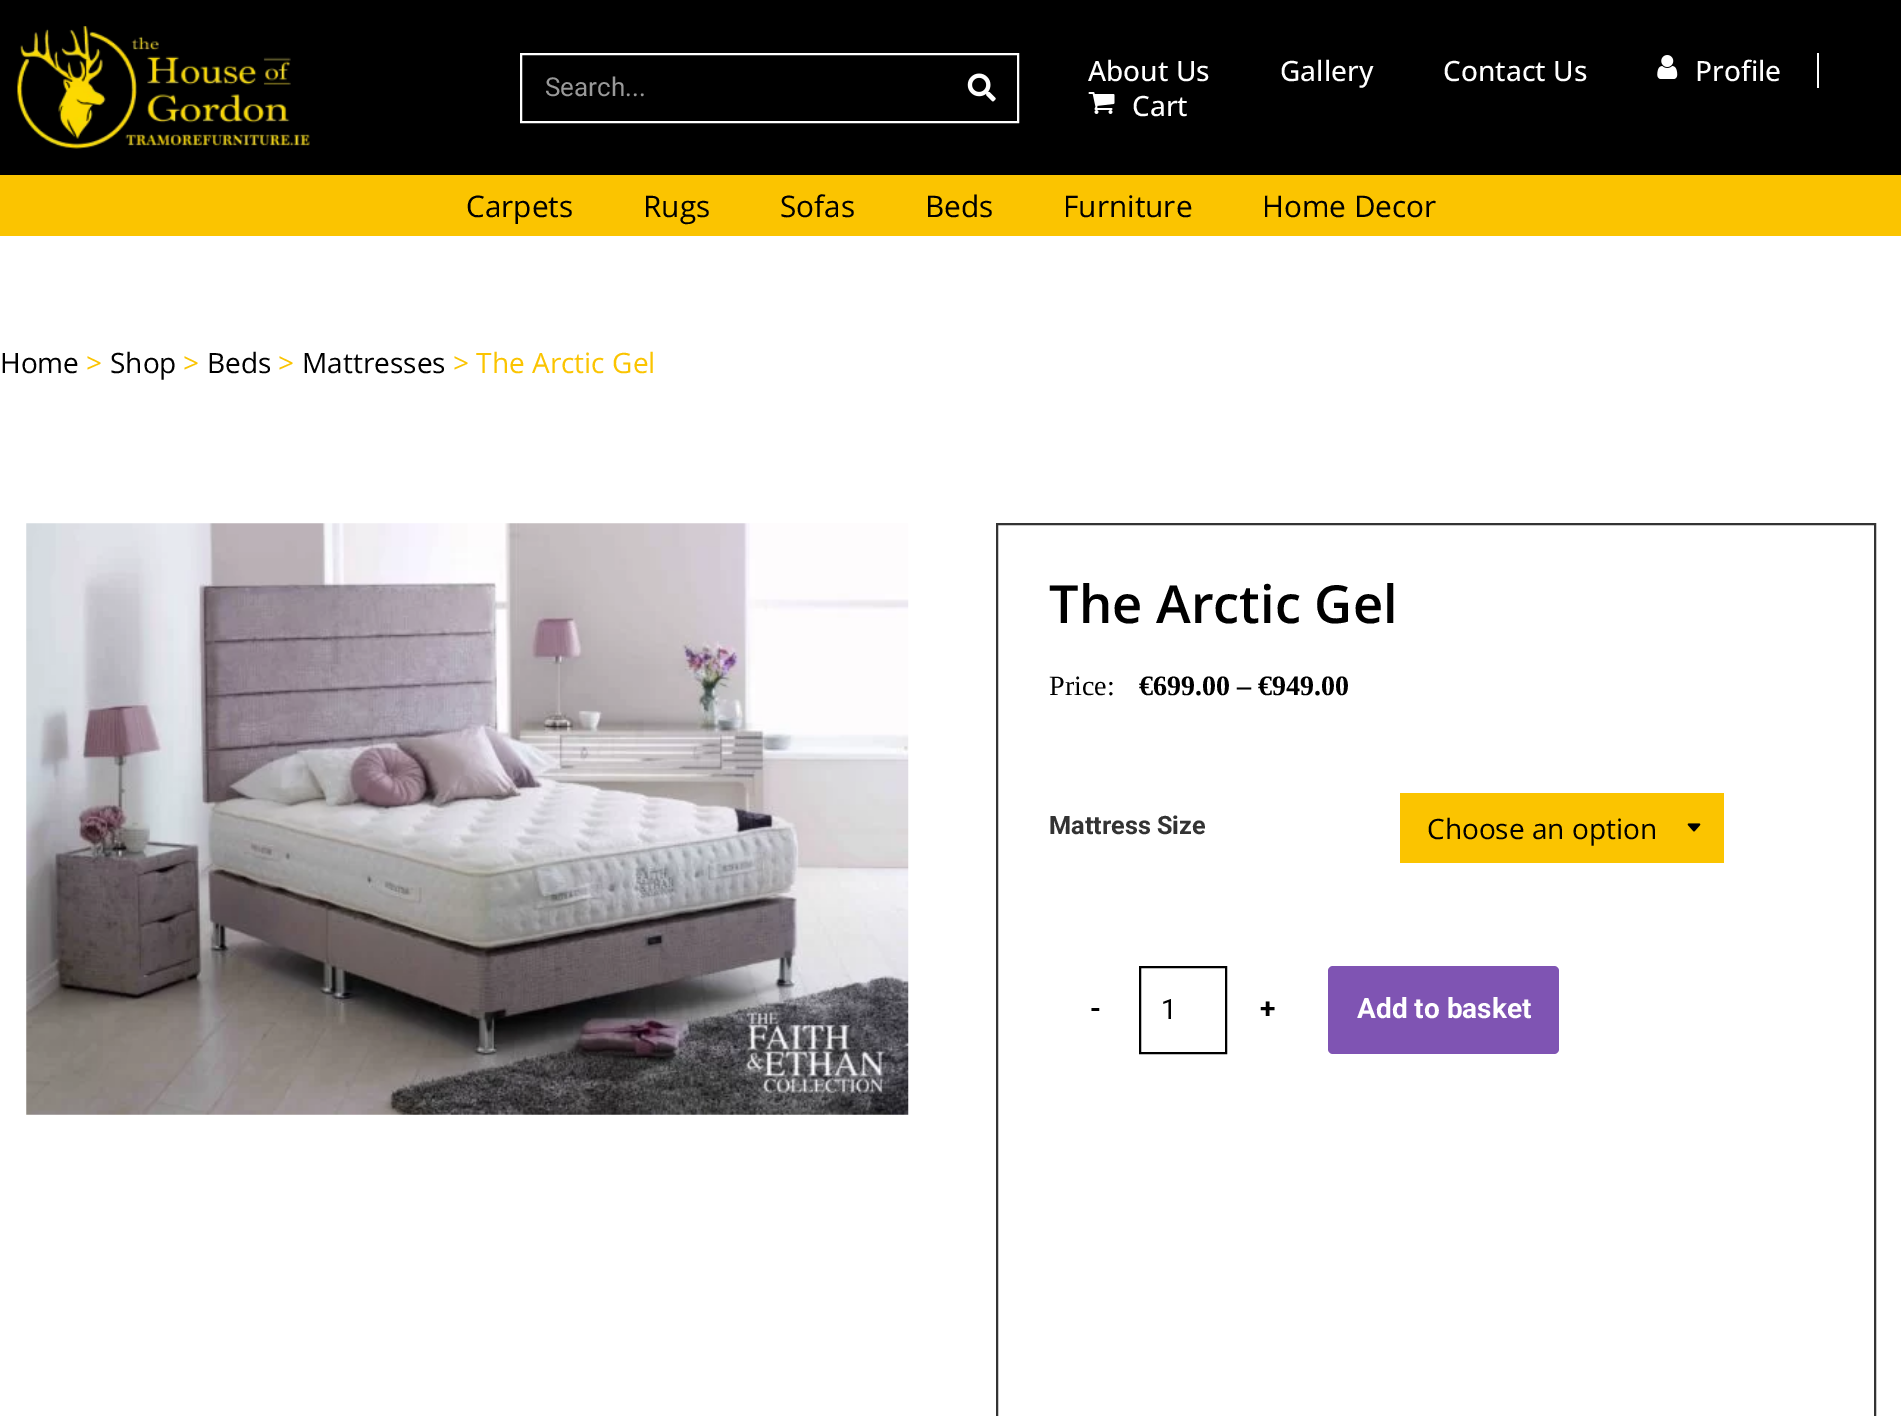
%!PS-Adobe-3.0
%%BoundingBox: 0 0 1901 1416
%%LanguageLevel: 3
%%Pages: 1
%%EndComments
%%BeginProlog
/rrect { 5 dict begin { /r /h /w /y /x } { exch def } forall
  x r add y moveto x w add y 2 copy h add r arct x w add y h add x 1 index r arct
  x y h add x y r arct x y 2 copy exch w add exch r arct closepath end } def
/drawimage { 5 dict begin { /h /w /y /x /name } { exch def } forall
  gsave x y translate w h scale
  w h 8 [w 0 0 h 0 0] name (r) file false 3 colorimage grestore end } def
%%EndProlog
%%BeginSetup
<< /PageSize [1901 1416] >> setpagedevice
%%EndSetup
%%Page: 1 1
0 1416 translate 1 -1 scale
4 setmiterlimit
1 setgray
0 0 1901 1416 rectfill
0 setgray
0 0 1901 175 rectfill
(images/1.raw) 17 26 293 123 drawimage
1 setgray
2 setlinewidth
521 54 497 68 rectstroke
(images/2.raw) 967 73 29 29 drawimage
1817 53 2 35 rectfill
(images/3.raw) 1657 55 21 24 drawimage
(images/4.raw) 1088 92 27 22 drawimage
0.984 0.769 0 setrgbcolor
0 175 1901 61 rectfill
(images/5.raw) 26 523 883 592 drawimage
0.2 setgray
997 524 878 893 rectstroke
0.984 0.769 0 setrgbcolor
1400 793 324 70 rectfill
(images/6.raw) 1687 823 14 9 drawimage
0 setgray
1140 967 86 86 rectstroke
0.498 0.329 0.702 setrgbcolor
1328 966 231 88 5 rrect fill
/Roboto-Regular [26 0 0 -26 0 0] selectfont
0.6 setgray
545 96 moveto (Search...) show
/OpenSans-Medium [28 0 0 -28 0 0] selectfont
1 setgray
1088 81 moveto (About Us) show
1280 81 moveto (Gallery) show
1443 81 moveto (Contact Us) show
1695 81 moveto (Profile) show
1132 116 moveto (Cart) show
/OpenSans-Regular [29.75 0 0 -29.75 0 0] selectfont
0 setgray
466 217 moveto (Carpets) show
643 217 moveto (Rugs) show
780 217 moveto (Sofas) show
925 217 moveto (Beds) show
1063 217 moveto (Furniture) show
1262 217 moveto (Home Decor) show
/OpenSans-Regular [28 0 0 -28 0 0] selectfont
0 373 moveto (Home) show
0.984 0.769 0 setrgbcolor
86 373 moveto (>) show
0 setgray
110 373 moveto (Shop) show
0.984 0.769 0 setrgbcolor
183 373 moveto (>) show
0 setgray
207 373 moveto (Beds) show
0.984 0.769 0 setrgbcolor
278 373 moveto (>) show
0 setgray
302 373 moveto (Mattresses) show
0.984 0.769 0 setrgbcolor
453 373 moveto (> The Arctic Gel) show
/OpenSans-SemiBold [52.5 0 0 -52.5 0 0] selectfont
0 setgray
1049 623 moveto (The Arctic Gel) show
/LiberationSerif-Regular [28 0 0 -28 0 0] selectfont
1049 695 moveto (Price:) show
/LiberationSerif-Bold [28 0 0 -28 0 0] selectfont
1139 695 moveto (€699.00 – €949.00) show
/Roboto-Bold [25.25 0 0 -25.25 0 0] selectfont
0.2 setgray
1049 834 moveto (Mattress Size) show
/OpenSans-Regular [28 0 0 -28 0 0] selectfont
0 setgray
1427 839 moveto (Choose an option) show
/Roboto-Regular [28 0 0 -28 0 0] selectfont
1161 1019 moveto (1) show
/Roboto-Bold [28 0 0 -28 0 0] selectfont
1 setgray
1357 1018 moveto (Add to basket) show
0 setgray
1090 1018 moveto (-) show
1260 1018 moveto (+) show
showpage
%%EOF
